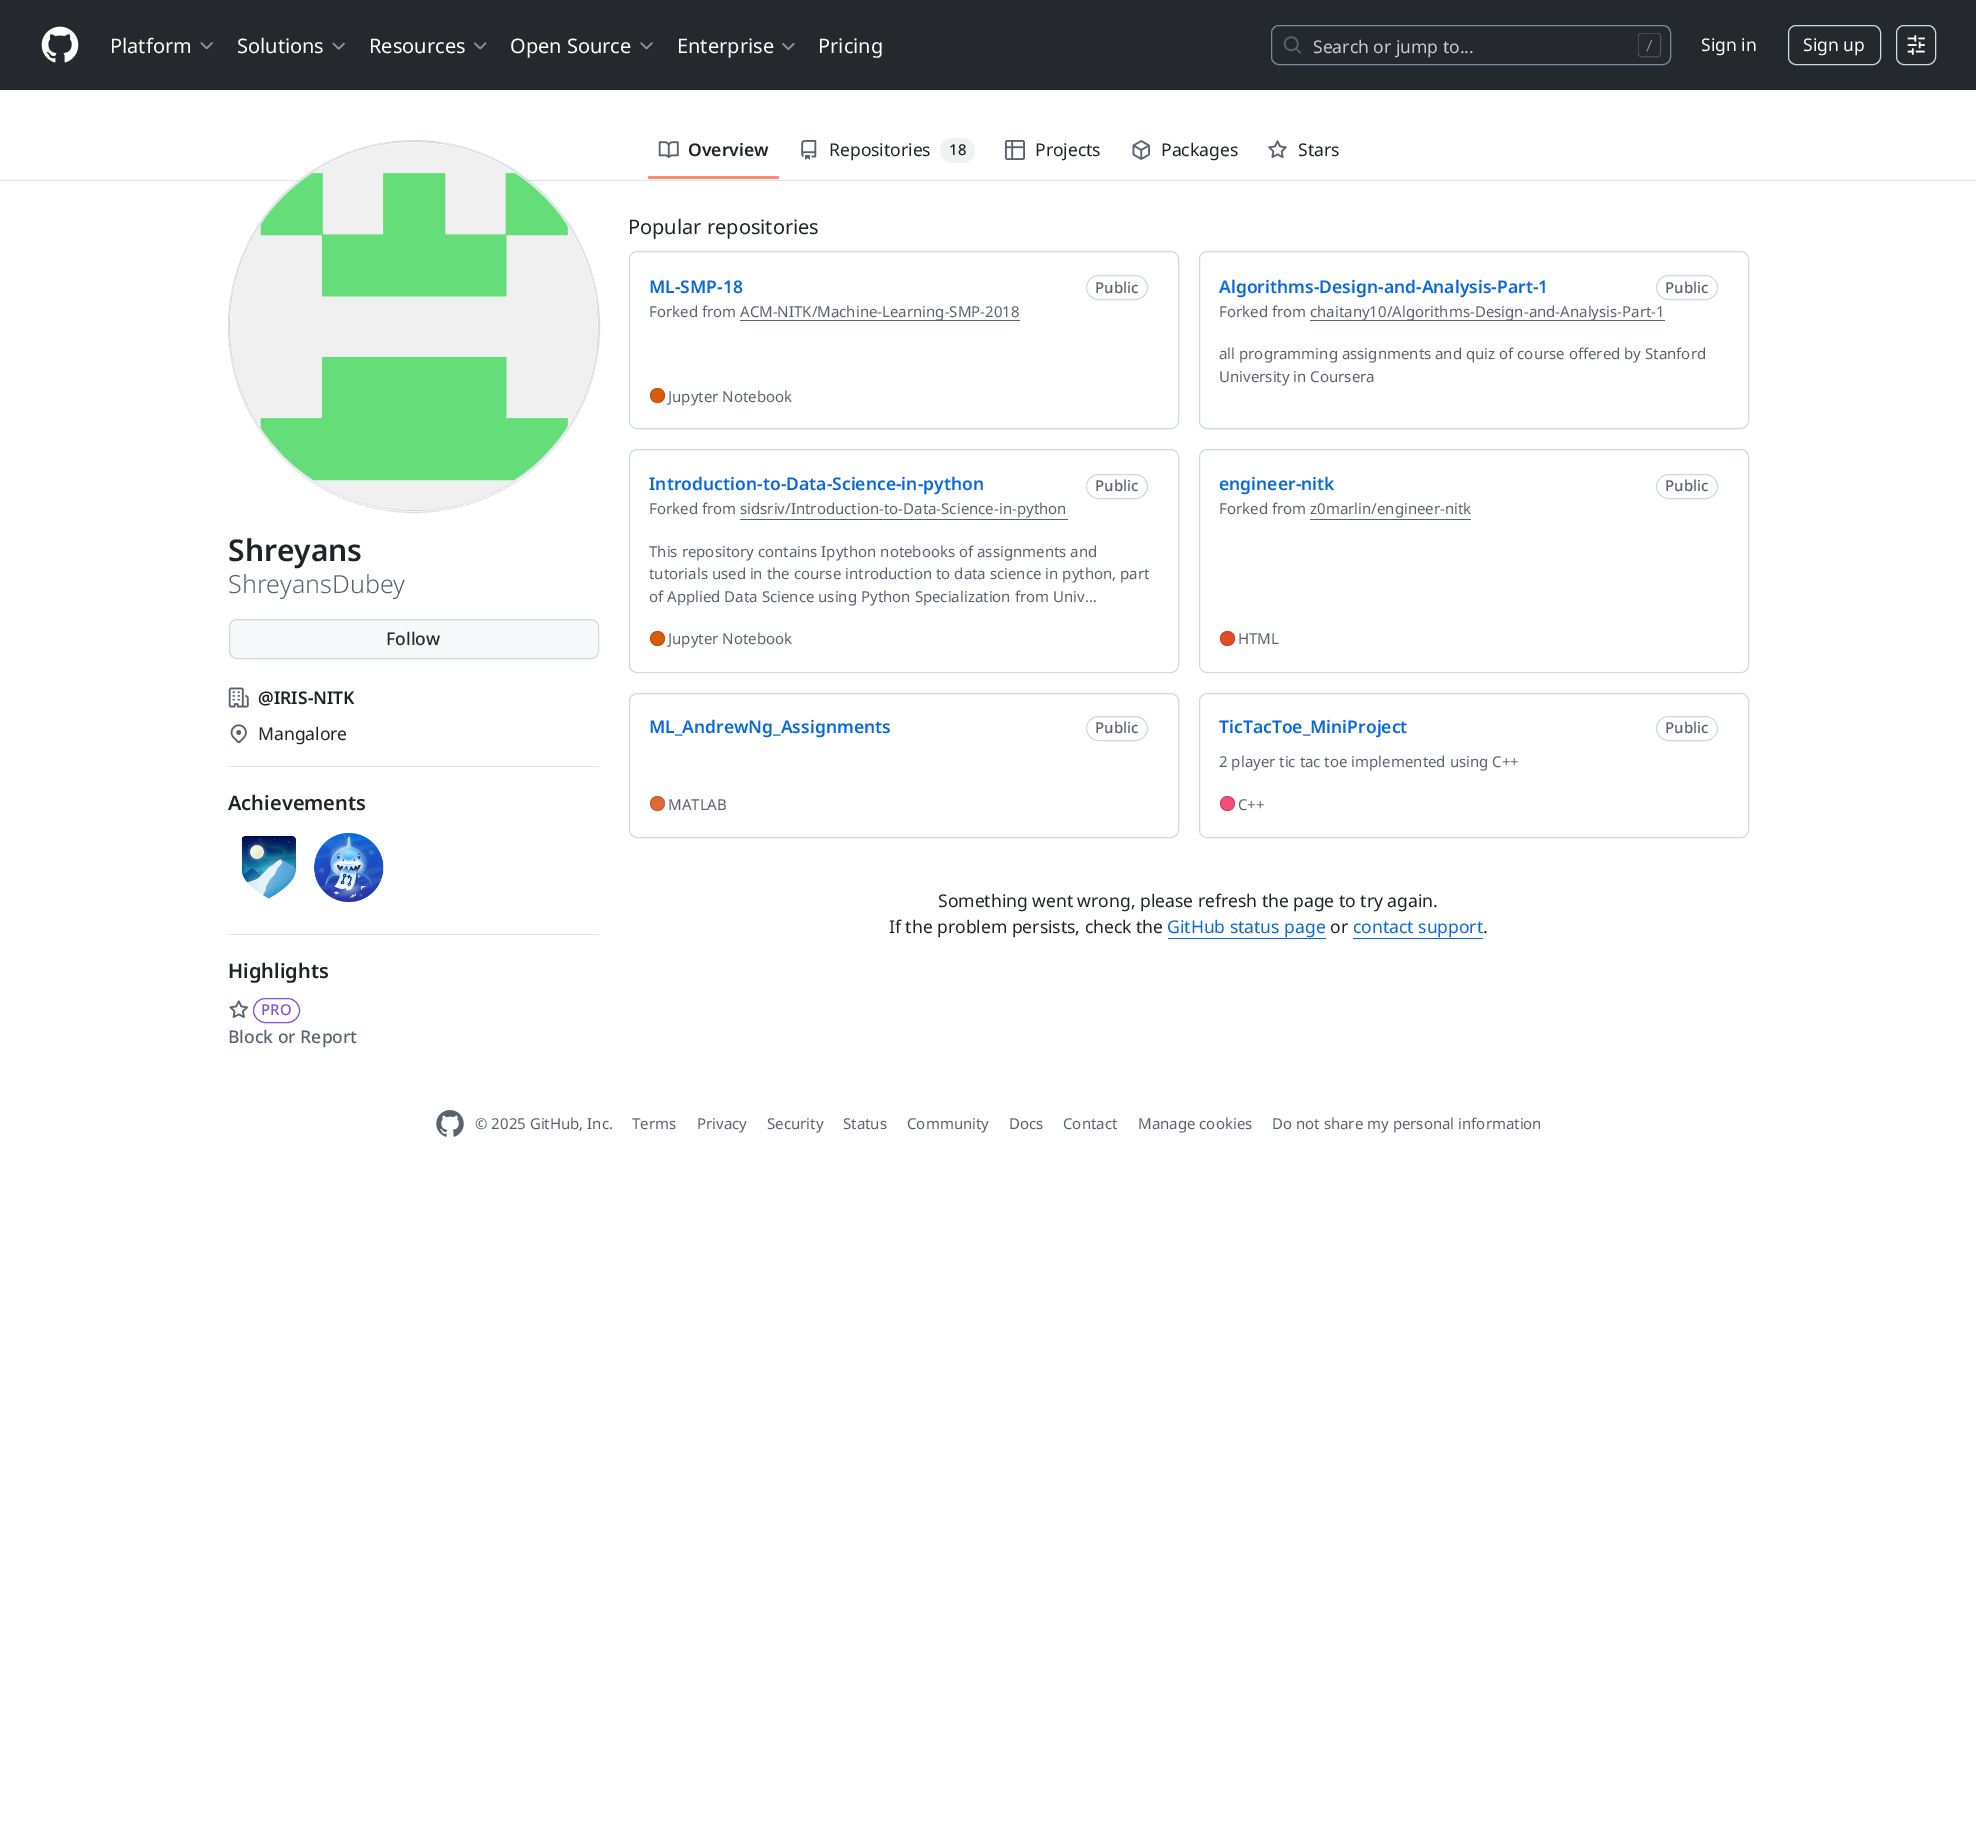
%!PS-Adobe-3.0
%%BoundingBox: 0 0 1976 1831
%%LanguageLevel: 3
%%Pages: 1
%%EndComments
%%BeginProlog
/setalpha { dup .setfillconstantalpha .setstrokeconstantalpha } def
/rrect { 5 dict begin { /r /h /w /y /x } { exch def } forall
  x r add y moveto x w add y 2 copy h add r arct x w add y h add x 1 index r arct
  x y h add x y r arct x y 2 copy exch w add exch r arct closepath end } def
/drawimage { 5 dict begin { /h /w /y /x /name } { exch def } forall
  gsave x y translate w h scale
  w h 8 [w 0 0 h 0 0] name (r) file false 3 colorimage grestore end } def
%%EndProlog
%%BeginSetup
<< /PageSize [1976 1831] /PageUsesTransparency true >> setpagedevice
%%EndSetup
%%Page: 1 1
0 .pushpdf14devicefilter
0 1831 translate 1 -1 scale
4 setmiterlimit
1 setgray
0 0 1976 1831 rectfill
0.145 0.161 0.18 setrgbcolor
0 0 1976 90 rectfill
(images/1.raw) 41 26 38 37 drawimage
(images/2.raw) 200 42 13 8 drawimage
(images/3.raw) 332 42 13 8 drawimage
(images/4.raw) 474 42 13 8 drawimage
(images/5.raw) 640 42 13 8 drawimage
(images/6.raw) 782 43 13 7 drawimage
0.506 0.545 0.596 setrgbcolor
1271.5 25.5 399 39 7.5 rrect stroke
(images/7.raw) 1283 36 19 18 drawimage
(images/8.raw) 1638 33 24 25 drawimage
0.82 0.851 0.878 setrgbcolor
1788.5 25.5 92 39 7.5 rrect stroke
1896.5 25.5 39 39 7.5 rrect stroke
(images/9.raw) 1907 35 18 20 drawimage
0.875 0.894 0.914 setrgbcolor
0 180 1976 1 rectfill
(images/10.raw) 658 141 21 18 drawimage
0.992 0.549 0.451 setrgbcolor
648 176 131 3 1.5 rrect fill
(images/11.raw) 801 140 16 20 drawimage
0.941 0.945 0.953 setrgbcolor
940 138 35 25 12.5 rrect fill
(images/12.raw) 1005 140 20 20 drawimage
(images/13.raw) 1132 140 18 20 drawimage
(images/14.raw) 1268 140 19 18 drawimage
0.15 setalpha
0.122 0.137 0.157 setrgbcolor
228.5 140.5 371 372 185.5 rrect stroke
1 setalpha
1 setgray
newpath 414 326 184.5 0 360 arc closepath gsave fill grestore
0.82 0.851 0.878 setrgbcolor
stroke
(images/15.raw) 230 143 367 367 drawimage
0.965 0.973 0.98 setrgbcolor
229.5 619.5 369 39 7.5 rrect gsave fill grestore
0.82 0.851 0.878 setrgbcolor
stroke
(images/16.raw) 228 687 21 21 drawimage
(images/17.raw) 230 724 17 20 drawimage
0.875 0.894 0.914 setrgbcolor
229 766 370 1 rectfill
(images/18.raw) 241 836 55 63 drawimage
(images/19.raw) 314 833 70 69 drawimage
229 934 370 1 rectfill
(images/20.raw) 229 1000 19 18 drawimage
0.51 0.314 0.875 setrgbcolor
253.5 998.5 46 24 12 rrect stroke
0.82 0.851 0.878 setrgbcolor
629.5 251.5 549 177 7.5 rrect stroke
1086.5 275.5 61 24 12 rrect stroke
0.349 0.388 0.431 setrgbcolor
740 320 280 1 rectfill
0.855 0.357 0.043 setrgbcolor
newpath 657.5 395.5 7.5 0 360 arc closepath fill
0.15 setalpha
0.122 0.137 0.157 setrgbcolor
newpath 657.5 395.5 7 0 360 arc closepath stroke
1 setalpha
0.82 0.851 0.878 setrgbcolor
1199.5 251.5 549 177 7.5 rrect stroke
1656.5 275.5 61 24 12 rrect stroke
0.349 0.388 0.431 setrgbcolor
1310 320 355 1 rectfill
0.82 0.851 0.878 setrgbcolor
629.5 449.5 549 223 7.5 rrect stroke
1086.5 474.5 61 24 12 rrect stroke
0.349 0.388 0.431 setrgbcolor
740 519 328 1 rectfill
0.855 0.357 0.043 setrgbcolor
newpath 657.5 638.5 7.5 0 360 arc closepath fill
0.15 setalpha
0.122 0.137 0.157 setrgbcolor
newpath 657.5 638.5 7 0 360 arc closepath stroke
1 setalpha
0.82 0.851 0.878 setrgbcolor
1199.5 449.5 549 223 7.5 rrect stroke
1656.5 474.5 61 24 12 rrect stroke
0.349 0.388 0.431 setrgbcolor
1310 519 161 1 rectfill
0.89 0.298 0.149 setrgbcolor
newpath 1227.5 638.5 7.5 0 360 arc closepath fill
0.15 setalpha
0.122 0.137 0.157 setrgbcolor
newpath 1227.5 638.5 7 0 360 arc closepath stroke
1 setalpha
0.82 0.851 0.878 setrgbcolor
629.5 693.5 549 144 7.5 rrect stroke
1086.5 716.5 61 24 12 rrect stroke
0.882 0.404 0.216 setrgbcolor
newpath 657.5 803.5 7.5 0 360 arc closepath fill
0.15 setalpha
0.122 0.137 0.157 setrgbcolor
newpath 657.5 803.5 7 0 360 arc closepath stroke
1 setalpha
0.82 0.851 0.878 setrgbcolor
1199.5 693.5 549 144 7.5 rrect stroke
1656.5 716.5 61 24 12 rrect stroke
0.953 0.294 0.49 setrgbcolor
newpath 1227.5 803.5 7.5 0 360 arc closepath fill
0.15 setalpha
0.122 0.137 0.157 setrgbcolor
newpath 1227.5 803.5 7 0 360 arc closepath stroke
1 setalpha
0.035 0.412 0.855 setrgbcolor
1168 938 158 1 rectfill
1353 938 130 1 rectfill
(images/21.raw) 436 1110 28 27 drawimage
/NotoSans-Regular [20 0 0 -20 0 0] selectfont
1 setgray
110 53 moveto (Platform) show
237 53 moveto (Solutions) show
369 53 moveto (Resources) show
510 53 moveto (Open Source) show
677 53 moveto (Enterprise) show
818 53 moveto (Pricing) show
/NotoSans-Regular [17.5 0 0 -17.5 0 0] selectfont
0.788 0.792 0.796 setrgbcolor
1313 53 moveto (Search or jump to...) show
1 setgray
1701 51 moveto (Sign in) show
1803 51 moveto (Sign up) show
/NotoSans-SemiBold [17.5 0 0 -17.5 0 0] selectfont
0.122 0.137 0.157 setrgbcolor
688 156 moveto (Overview) show
/NotoSans-Regular [17.5 0 0 -17.5 0 0] selectfont
829 156 moveto (Repositories) show
/NotoSans-Medium [15 0 0 -15 0 0] selectfont
949 155 moveto (18) show
/NotoSans-Regular [17.5 0 0 -17.5 0 0] selectfont
1035 156 moveto (Projects) show
1161 156 moveto (Packages) show
1298 156 moveto (Stars) show
/NotoSans-SemiBold [30 0 0 -30 0 0] selectfont
228 561 moveto (Shreyans) show
/NotoSans-Light [25 0 0 -25 0 0] selectfont
0.349 0.388 0.431 setrgbcolor
228 593 moveto (ShreyansDubey) show
/NotoSans-Medium [17.5 0 0 -17.5 0 0] selectfont
0.145 0.161 0.18 setrgbcolor
386 645 moveto (Follow) show
/NotoSans-SemiBold [17.5 0 0 -17.5 0 0] selectfont
0.122 0.137 0.157 setrgbcolor
258 704 moveto (@IRIS-NITK) show
/NotoSans-Regular [17.5 0 0 -17.5 0 0] selectfont
258 740 moveto (Mangalore) show
/NotoSans-SemiBold [20 0 0 -20 0 0] selectfont
228 810 moveto (Achievements) show
228 978 moveto (Highlights) show
/NotoSans-Medium [15 0 0 -15 0 0] selectfont
0.51 0.314 0.875 setrgbcolor
261 1015 moveto (PRO) show
/NotoSans-Medium [17.5 0 0 -17.5 0 0] selectfont
0.349 0.388 0.431 setrgbcolor
228 1043 moveto (Block or Report) show
/NotoSans-Regular [20 0 0 -20 0 0] selectfont
0.122 0.137 0.157 setrgbcolor
628 234 moveto (Popular repositories) show
/NotoSans-SemiBold [17.5 0 0 -17.5 0 0] selectfont
0.035 0.412 0.855 setrgbcolor
649 293 moveto (ML-SMP-18) show
/NotoSans-Medium [15 0 0 -15 0 0] selectfont
0.349 0.388 0.431 setrgbcolor
1095 293 moveto (Public) show
/NotoSans-Regular [15 0 0 -15 0 0] selectfont
649 317 moveto (Forked from) show
740 317 moveto (ACM-NITK/Machine-Learning-SMP-2018) show
668 402 moveto (Jupyter Notebook) show
/NotoSans-SemiBold [17.5 0 0 -17.5 0 0] selectfont
0.035 0.412 0.855 setrgbcolor
1219 293 moveto (Algorithms-Design-and-Analysis-Part-1) show
/NotoSans-Medium [15 0 0 -15 0 0] selectfont
0.349 0.388 0.431 setrgbcolor
1665 293 moveto (Public) show
/NotoSans-Regular [15 0 0 -15 0 0] selectfont
1219 317 moveto (Forked from) show
1310 317 moveto (chaitany10/Algorithms-Design-and-Analysis-Part-1) show
1219 359 moveto (all programming assignments and quiz of course offered by Stanford) show
1219 382 moveto (University in Coursera) show
/NotoSans-SemiBold [17.5 0 0 -17.5 0 0] selectfont
0.035 0.412 0.855 setrgbcolor
649 490 moveto (Introduction-to-Data-Science-in-python) show
/NotoSans-Medium [15 0 0 -15 0 0] selectfont
0.349 0.388 0.431 setrgbcolor
1095 491 moveto (Public) show
/NotoSans-Regular [15 0 0 -15 0 0] selectfont
649 514 moveto (Forked from sidsriv/Introduction-to-Data-Science-in-python) show
649 557 moveto (This repository contains Ipython notebooks of assignments and) show
649 579 moveto (tutorials used in the course introduction to data science in python, part) show
649 602 moveto (of Applied Data Science using Python Specialization from Univ…) show
668 644 moveto (Jupyter Notebook) show
/NotoSans-SemiBold [17.5 0 0 -17.5 0 0] selectfont
0.035 0.412 0.855 setrgbcolor
1219 490 moveto (engineer-nitk) show
/NotoSans-Medium [15 0 0 -15 0 0] selectfont
0.349 0.388 0.431 setrgbcolor
1665 491 moveto (Public) show
/NotoSans-Regular [15 0 0 -15 0 0] selectfont
1219 514 moveto (Forked from z0marlin/engineer-nitk) show
1238 644 moveto (HTML) show
/NotoSans-SemiBold [17.5 0 0 -17.5 0 0] selectfont
0.035 0.412 0.855 setrgbcolor
649 733 moveto (ML_AndrewNg_Assignments) show
/NotoSans-Medium [15 0 0 -15 0 0] selectfont
0.349 0.388 0.431 setrgbcolor
1095 733 moveto (Public) show
/NotoSans-Regular [15 0 0 -15 0 0] selectfont
668 810 moveto (MATLAB) show
/NotoSans-SemiBold [17.5 0 0 -17.5 0 0] selectfont
0.035 0.412 0.855 setrgbcolor
1219 733 moveto (TicTacToe_MiniProject) show
/NotoSans-Medium [15 0 0 -15 0 0] selectfont
0.349 0.388 0.431 setrgbcolor
1665 733 moveto (Public) show
/NotoSans-Regular [15 0 0 -15 0 0] selectfont
1219 767 moveto (2 player tic tac toe implemented using C++) show
1238 810 moveto (C++) show
/NotoSans-Regular [17.5 0 0 -17.5 0 0] selectfont
0.122 0.137 0.157 setrgbcolor
938 907 moveto (Something went wrong, please refresh the page to try again.) show
889 933 moveto (If the problem persists, check the) show
0.035 0.412 0.855 setrgbcolor
1167 933 moveto (GitHub status page) show
0.122 0.137 0.157 setrgbcolor
1330 933 moveto (or) show
0.035 0.412 0.855 setrgbcolor
1353 933 moveto (contact support) show
0.122 0.137 0.157 setrgbcolor
1483 933 moveto (.) show
/NotoSans-Regular [15 0 0 -15 0 0] selectfont
0.349 0.388 0.431 setrgbcolor
475 1129 moveto (© 2025 GitHub, Inc.) show
632 1129 moveto (Terms) show
697 1129 moveto (Privacy) show
767 1129 moveto (Security) show
843 1129 moveto (Status) show
907 1129 moveto (Community) show
1009 1129 moveto (Docs) show
1063 1129 moveto (Contact) show
1138 1129 moveto (Manage cookies) show
1272 1129 moveto (Do not share my personal information) show
.poppdf14devicefilter showpage
%%EOF
